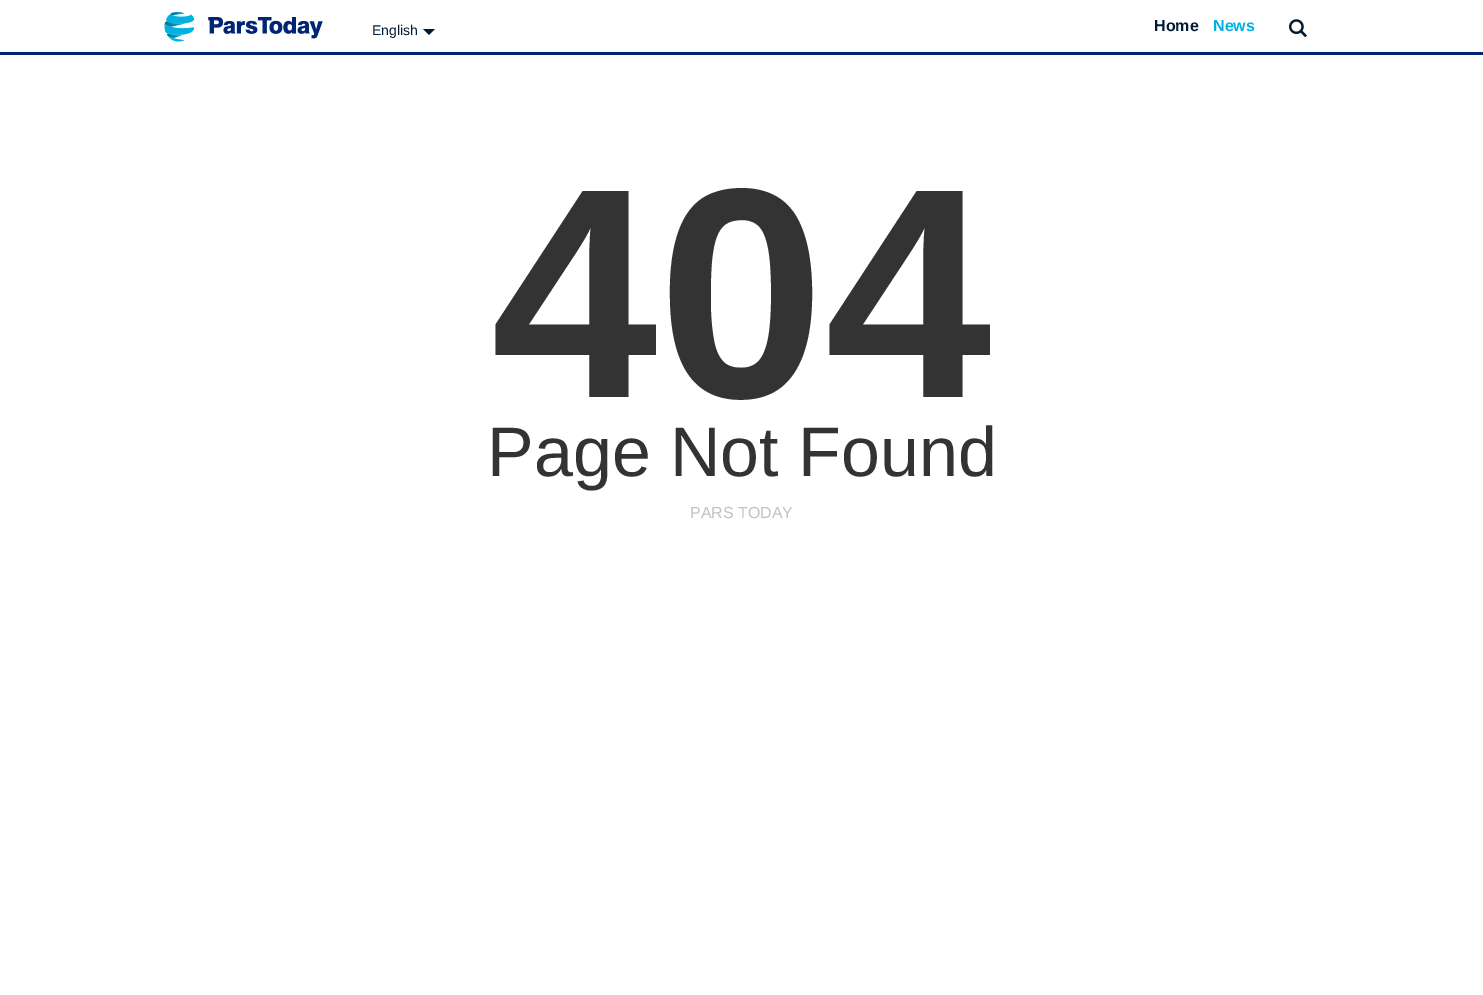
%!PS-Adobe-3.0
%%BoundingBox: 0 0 1483 995
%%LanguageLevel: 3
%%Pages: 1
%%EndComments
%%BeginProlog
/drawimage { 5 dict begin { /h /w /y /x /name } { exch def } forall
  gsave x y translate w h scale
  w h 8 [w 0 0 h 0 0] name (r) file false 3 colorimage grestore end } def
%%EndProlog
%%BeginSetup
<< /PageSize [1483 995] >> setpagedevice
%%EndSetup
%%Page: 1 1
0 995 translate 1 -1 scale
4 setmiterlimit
1 setgray
0 0 1483 995 rectfill
0 0.145 0.459 setrgbcolor
0 52 1483 3 rectfill
(images/1.raw) 164 12 159 30 drawimage
0 0.11 0.208 setrgbcolor
newpath 423 29 moveto 435 29 lineto 429 35 lineto closepath fill
(images/2.raw) 1289 19 18 19 drawimage
/LiberationSans-Regular [14 0 0 -14 0 0] selectfont
372 35 moveto (English) show
/LiberationSans-Bold [16 0 0 -16 0 0] selectfont
1154 31 moveto (Home) show
0 0.694 0.886 setrgbcolor
1213 31 moveto (News) show
/LiberationSans-Bold [300 0 0 -300 0 0] selectfont
0.2 setgray
491 397 moveto (404) show
/LiberationSans-Regular [70 0 0 -70 0 0] selectfont
487 476 moveto (Page Not Found) show
/LiberationSans-Regular [16 0 0 -16 0 0] selectfont
0.761 setgray
690 518 moveto (PARS TODAY) show
showpage
%%EOF
